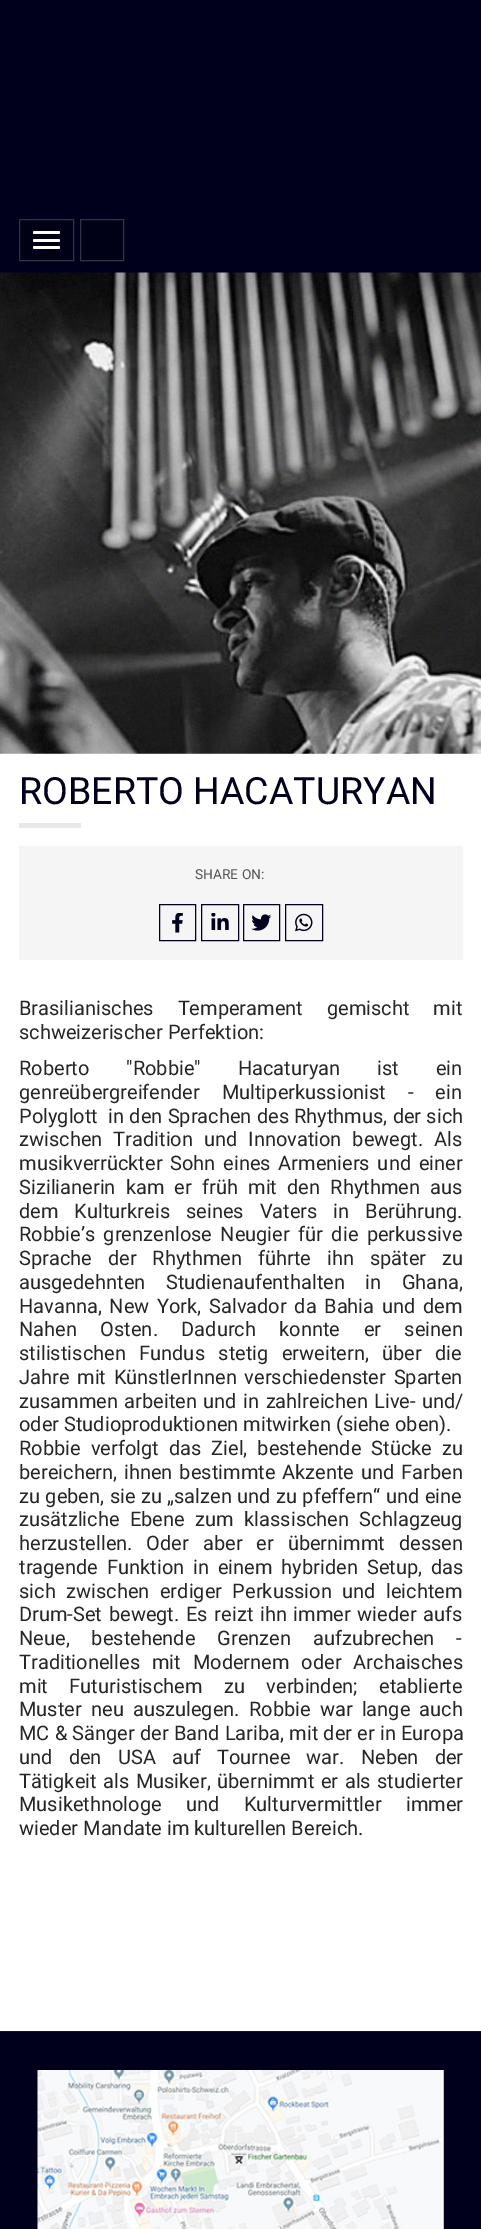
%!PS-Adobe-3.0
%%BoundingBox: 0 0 481 2229
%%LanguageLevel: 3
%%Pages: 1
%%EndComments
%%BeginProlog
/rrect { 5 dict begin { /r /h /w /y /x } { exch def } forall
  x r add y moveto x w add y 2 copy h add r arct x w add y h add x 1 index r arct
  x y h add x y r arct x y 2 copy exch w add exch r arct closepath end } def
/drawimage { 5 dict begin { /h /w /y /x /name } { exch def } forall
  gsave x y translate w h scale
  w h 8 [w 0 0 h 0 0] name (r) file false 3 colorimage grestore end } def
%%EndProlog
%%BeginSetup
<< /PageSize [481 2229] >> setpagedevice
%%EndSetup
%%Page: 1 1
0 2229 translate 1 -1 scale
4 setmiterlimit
0 0 0.11 setrgbcolor
0 0 481 2229 rectfill
0 0 0.086 setrgbcolor
newpath 19.5 219.5 moveto 73.5 219.5 lineto 73.5 260.5 lineto 19.5 260.5 lineto closepath gsave fill grestore
0.2 0.2 0.271 setrgbcolor
stroke
1 setgray
33 231 27 3 1.5 rrect fill
33 239 27 3 1.5 rrect fill
33 246 27 3 1.5 rrect fill
0 0 0.086 setrgbcolor
newpath 80.5 219.5 moveto 123.5 219.5 lineto 123.5 260.5 lineto 80.5 260.5 lineto closepath gsave fill grestore
0.2 0.2 0.271 setrgbcolor
stroke
1 setgray
0 753 481 1278 rectfill
(images/1.raw) 0 272 481 482 drawimage
0.91 setgray
19 823 62 5 rectfill
0.961 setgray
19 846 444 114 rectfill
0 0 0.11 setrgbcolor
159.5 904.5 36 36 rectstroke
(images/2.raw) 172 913 11 20 drawimage
201.5 904.5 37 36 rectstroke
(images/3.raw) 211 913 18 17 drawimage
243.5 904.5 36 36 rectstroke
(images/4.raw) 251 914 20 17 drawimage
285.5 904.5 37 36 rectstroke
(images/5.raw) 295 913 18 19 drawimage
0.071 0.071 0.173 setrgbcolor
0 2031 481 1 rectfill
(images/6.raw) 37 2070 407 159 drawimage
/Roboto-Regular [37.5 0 0 -37.5 0 0] selectfont
0 0 0.11 setrgbcolor
19 804 moveto (ROBERTO HACATURYAN) show
/Roboto-Regular [13.75 0 0 -13.75 0 0] selectfont
0.333 setgray
195 879 moveto (SHARE ON:) show
/Roboto-Regular [20 0 0 -20 0 0] selectfont
0.149 setgray
19 1015 moveto 19 0 32 (Brasilianisches Temperament gemischt mit) widthshow
19 1039 moveto (schweizerischer Perfektion:) show
19 1075 moveto 32 0 32 (Roberto "Robbie" Hacaturyan ist ein) widthshow
19 1099 moveto 17 0 32 (genreübergreifender Multiperkussionist - ein) widthshow
19 1123 moveto 0.25 0 32 (Polyglott  in den Sprachen des Rhythmus, der sich) widthshow
19 1146 moveto 6 0 32 (zwischen Tradition und Innovation bewegt. Als) widthshow
19 1170 moveto 2.75 0 32 (musikverrückter Sohn eines Armeniers und einer) widthshow
19 1194 moveto 5.25 0 32 (Sizilianerin kam er früh mit den Rhythmen aus) widthshow
19 1218 moveto 11 0 32 (dem Kulturkreis seines Vaters in Berührung.) widthshow
19 1241 moveto 3.5 0 32 (Robbie’s grenzenlose Neugier für die perkussive) widthshow
19 1265 moveto 11 0 32 (Sprache der Rhythmen führte ihn später zu) widthshow
19 1289 moveto 15.5 0 32 (ausgedehnten Studienaufenthalten in Ghana,) widthshow
19 1313 moveto 2.75 0 32 (Havanna, New York, Salvador da Bahia und dem) widthshow
19 1336 moveto 18.5 0 32 (Nahen Osten. Dadurch konnte er seinen) widthshow
19 1360 moveto 8.5 0 32 (stilistischen Fundus stetig erweitern, über die) widthshow
19 1384 moveto 2.75 0 32 (Jahre mit KünstlerInnen verschiedenster Sparten) widthshow
19 1408 moveto 1.5 0 32 (zusammen arbeiten und in zahlreichen Live- und/) widthshow
19 1431 moveto (oder Studioproduktionen mitwirken \(siehe oben\).) show
19 1455 moveto 5 0 32 (Robbie verfolgt das Ziel, bestehende Stücke zu) widthshow
19 1479 moveto 2 0 32 (bereichern, ihnen bestimmte Akzente und Farben) widthshow
19 1503 moveto 0.5 0 32 (zu geben, sie zu „salzen und zu pfeffern“ und eine) widthshow
19 1526 moveto 5.5 0 32 (zusätzliche Ebene zum klassischen Schlagzeug) widthshow
19 1550 moveto 9 0 32 (herzustellen. Oder aber er übernimmt dessen) widthshow
19 1574 moveto 4 0 32 (tragende Funktion in einem hybriden Setup, das) widthshow
19 1598 moveto 5.5 0 32 (sich zwischen erdiger Perkussion und leichtem) widthshow
19 1621 moveto 1.75 0 32 (Drum-Set bewegt. Es reizt ihn immer wieder aufs) widthshow
19 1645 moveto 17 0 32 (Neue, bestehende Grenzen aufzubrechen -) widthshow
19 1669 moveto 7 0 32 (Traditionelles mit Modernem oder Archaisches) widthshow
19 1693 moveto 16.5 0 32 (mit Futuristischem zu verbinden; etablierte) widthshow
19 1716 moveto 4.25 0 32 (Muster neu auszulegen. Robbie war lange auch) widthshow
19 1740 moveto 0.25 0 32 (MC & Sänger der Band Lariba, mit der er in Europa) widthshow
19 1764 moveto 11.25 0 32 (und den USA auf Tournee war. Neben der) widthshow
19 1788 moveto 1.5 0 32 (Tätigkeit als Musiker, übernimmt er als studierter) widthshow
19 1811 moveto 19.5 0 32 (Musikethnologe und Kulturvermittler immer) widthshow
19 1835 moveto (wieder Mandate im kulturellen Bereich.) show
showpage
%%EOF
